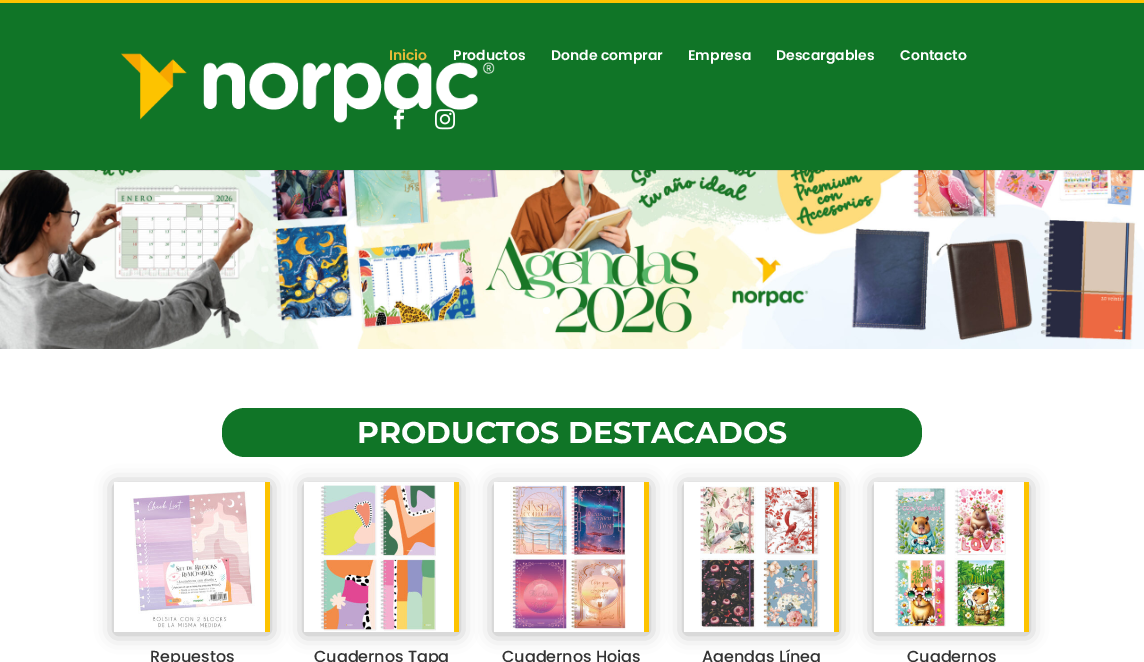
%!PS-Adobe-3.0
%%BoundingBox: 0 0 1144 662
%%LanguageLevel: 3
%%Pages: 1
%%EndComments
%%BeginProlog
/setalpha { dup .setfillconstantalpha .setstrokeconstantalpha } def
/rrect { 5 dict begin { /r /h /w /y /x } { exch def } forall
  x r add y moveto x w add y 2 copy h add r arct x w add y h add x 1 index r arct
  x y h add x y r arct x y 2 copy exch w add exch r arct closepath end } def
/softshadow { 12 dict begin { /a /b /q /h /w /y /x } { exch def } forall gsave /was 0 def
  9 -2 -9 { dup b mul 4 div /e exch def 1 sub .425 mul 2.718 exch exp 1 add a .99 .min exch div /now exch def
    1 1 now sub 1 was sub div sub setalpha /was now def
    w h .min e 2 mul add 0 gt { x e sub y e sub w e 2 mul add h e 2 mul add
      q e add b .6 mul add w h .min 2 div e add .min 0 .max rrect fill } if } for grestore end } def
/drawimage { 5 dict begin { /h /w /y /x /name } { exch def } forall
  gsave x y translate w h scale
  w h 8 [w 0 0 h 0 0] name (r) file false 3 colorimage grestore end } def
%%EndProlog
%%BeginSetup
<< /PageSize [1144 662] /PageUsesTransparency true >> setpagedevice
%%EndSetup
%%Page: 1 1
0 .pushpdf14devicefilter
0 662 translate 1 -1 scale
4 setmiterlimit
1 setgray
0 0 1144 662 rectfill
(images/4.raw) 0 170 1144 179 drawimage
0.1 setalpha
0 setgray
0 170 1144 1 rectfill
1 setalpha
0.063 0.459 0.153 setrgbcolor
0 3 1144 167 rectfill
0.992 0.765 0 setrgbcolor
0 0 1144 3 rectfill
(images/1.raw) 121 53 374 70 drawimage
(images/2.raw) 394 109 10 21 drawimage
(images/3.raw) 435 109 20 21 drawimage
1 setgray
newpath 546.5 310.5 3.5 0 360 arc closepath fill
0.25 setalpha
newpath 563.5 310.5 3.5 0 360 arc closepath fill
newpath 580.5 310.5 3.5 0 360 arc closepath fill
newpath 597.5 310.5 3.5 0 360 arc closepath fill
1 setalpha
0.063 0.459 0.153 setrgbcolor
222 408 700 49 23 rrect fill
gsave
newpath 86 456 moveto 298 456 lineto 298 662 lineto 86 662 lineto closepath 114 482 moveto 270 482 lineto 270 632 lineto 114 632 lineto closepath eoclip newpath
0 setgray
114 484 156 150 0 9 0.3 softshadow
grestore
0.992 0.765 0 setrgbcolor
265 482 5 150 rectfill
(images/5.raw) 130 490 125 140 drawimage
gsave
newpath 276 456 moveto 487 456 lineto 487 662 lineto 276 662 lineto closepath 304 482 moveto 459 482 lineto 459 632 lineto 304 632 lineto closepath eoclip newpath
0 setgray
304 484 155 150 0 9 0.3 softshadow
grestore
454 482 5 150 rectfill
(images/6.raw) 320 483 116 148 drawimage
gsave
newpath 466 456 moveto 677 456 lineto 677 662 lineto 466 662 lineto closepath 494 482 moveto 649 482 lineto 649 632 lineto 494 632 lineto closepath eoclip newpath
0 setgray
494 484 155 150 0 9 0.3 softshadow
grestore
644 482 5 150 rectfill
(images/7.raw) 510 485 116 145 drawimage
gsave
newpath 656 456 moveto 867 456 lineto 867 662 lineto 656 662 lineto closepath 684 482 moveto 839 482 lineto 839 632 lineto 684 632 lineto closepath eoclip newpath
0 setgray
684 484 155 150 0 9 0.3 softshadow
grestore
834 482 5 150 rectfill
(images/8.raw) 700 486 120 144 drawimage
gsave
newpath 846 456 moveto 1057 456 lineto 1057 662 lineto 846 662 lineto closepath 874 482 moveto 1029 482 lineto 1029 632 lineto 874 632 lineto closepath eoclip newpath
0 setgray
874 484 155 150 0 9 0.3 softshadow
grestore
1024 482 5 150 rectfill
(images/9.raw) 894 486 112 141 drawimage
/Poppins-SemiBold [14 0 0 -14 0 0] selectfont
0.898 0.729 0.22 setrgbcolor
389 60 moveto (Inicio) show
1 setgray
453 60 moveto (Productos) show
551 60 moveto (Donde comprar) show
688 60 moveto (Empresa) show
776 60 moveto (Descargables) show
900 60 moveto (Contacto) show
/Montserrat-Bold [30 0 0 -30 0 0] selectfont
357 443 moveto (PRODUCTOS DESTACADOS) show
/Poppins-Medium [16 0 0 -16 0 0] selectfont
0.2 setgray
150 662 moveto (Repuestos) show
314 662 moveto (Cuadernos Tapa) show
502 662 moveto (Cuadernos Hojas) show
702 662 moveto (Agendas Línea) show
907 662 moveto (Cuadernos) show
.poppdf14devicefilter showpage
%%EOF
